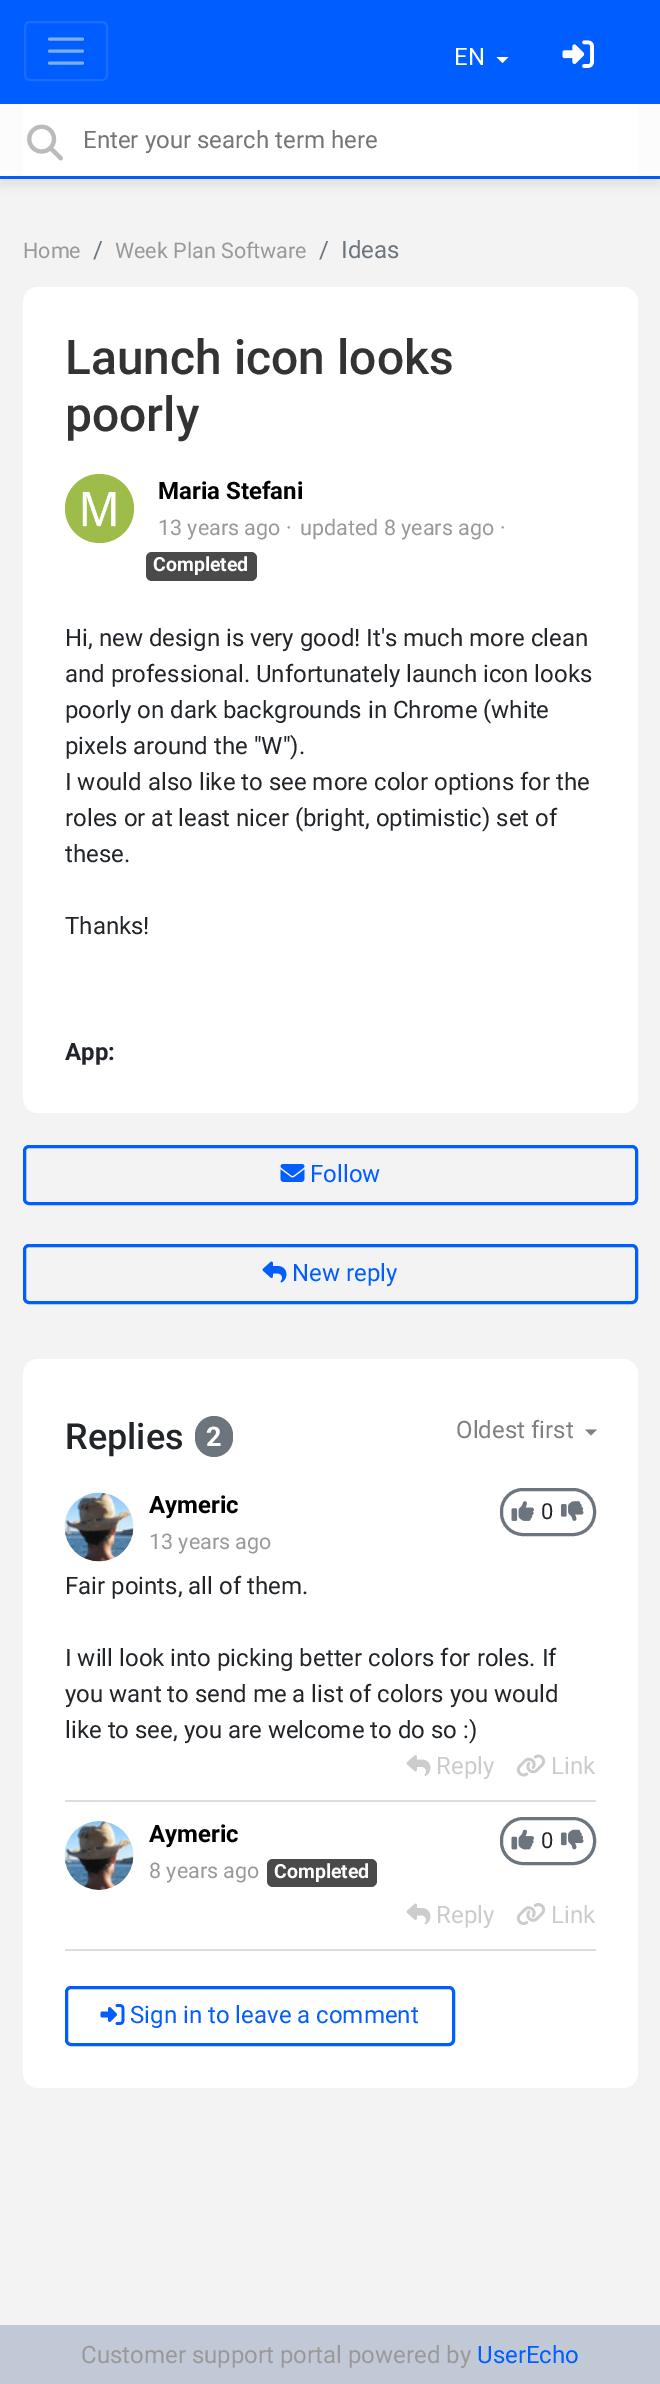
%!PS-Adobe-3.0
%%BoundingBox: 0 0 660 2384
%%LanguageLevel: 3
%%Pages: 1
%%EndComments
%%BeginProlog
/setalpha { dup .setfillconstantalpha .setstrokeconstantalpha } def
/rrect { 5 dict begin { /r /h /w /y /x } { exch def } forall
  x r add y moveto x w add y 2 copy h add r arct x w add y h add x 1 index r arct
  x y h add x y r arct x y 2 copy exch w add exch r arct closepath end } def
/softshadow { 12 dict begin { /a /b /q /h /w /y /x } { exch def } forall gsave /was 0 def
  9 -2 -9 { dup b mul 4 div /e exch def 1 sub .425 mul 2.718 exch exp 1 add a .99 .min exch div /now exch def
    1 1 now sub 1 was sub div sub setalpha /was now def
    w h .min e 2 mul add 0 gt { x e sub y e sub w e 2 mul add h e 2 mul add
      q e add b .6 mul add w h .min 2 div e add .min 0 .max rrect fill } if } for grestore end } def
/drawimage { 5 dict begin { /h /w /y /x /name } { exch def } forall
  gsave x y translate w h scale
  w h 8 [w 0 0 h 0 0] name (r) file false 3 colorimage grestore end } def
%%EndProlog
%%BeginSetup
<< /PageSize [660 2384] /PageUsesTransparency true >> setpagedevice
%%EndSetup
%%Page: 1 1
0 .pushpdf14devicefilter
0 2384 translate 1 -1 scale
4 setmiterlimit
0.953 setgray
0 0 660 2384 rectfill
0 0.365 1 setrgbcolor
0 0 660 104 rectfill
0.102 0.427 1 setrgbcolor
2 setlinewidth
25 22 82 58 5 rrect stroke
0.502 0.682 1 setrgbcolor
3 setlinewidth
1 setlinecap
newpath 49.5 39 moveto 82.5 39 lineto 49.5 51 moveto 82.5 51 lineto 49.5 63 moveto 82.5 63 lineto stroke
1 setgray
newpath 496.5 57 moveto 508.5 57 lineto 502.5 63 lineto closepath fill
(images/1.raw) 562 40 32 28 drawimage
0.392 setgray
0 111 660 75 0 4 0.1 softshadow
0.988 setgray
0 104 660 72 rectfill
0 0.365 1 setrgbcolor
0 176 660 3 rectfill
1 setgray
23 104 615 72 rectfill
(images/2.raw) 27 124 36 37 drawimage
23 287 615 826 15 rrect fill
0.616 0.737 0.29 setrgbcolor
newpath 99.5 508.5 34.5 0 360 arc closepath fill
(images/3.raw) 82 491 34 36 drawimage
0.29 setgray
146 552 111 29 6 rrect fill
0 0.365 1 setrgbcolor
0 setlinecap
24.5 1146.5 612 57 4.5 rrect stroke
(images/4.raw) 280 1164 25 18 drawimage
24.5 1245.5 612 57 4.5 rrect stroke
(images/5.raw) 262 1261 25 22 drawimage
1 setgray
23 1359 615 729 15 rrect fill
0.424 0.459 0.49 setrgbcolor
195 1416 38 41 19 rrect fill
0.502 setgray
newpath 585 1429.5 moveto 597 1429.5 lineto 591 1435.5 lineto closepath fill
0.867 setgray
65 1800 531 2 rectfill
(images/6.raw) 64 1492 70 70 drawimage
0.424 0.459 0.49 setrgbcolor
501.5 1489.5 93 45 21.5 rrect stroke
(images/7.raw) 511 1501 23 20 drawimage
(images/8.raw) 561 1501 23 20 drawimage
(images/9.raw) 406 1755 25 21 drawimage
(images/10.raw) 516 1754 30 23 drawimage
0.867 setgray
65 1949 531 2 rectfill
(images/11.raw) 64 1821 70 69 drawimage
0.29 setgray
267 1859 110 28 6 rrect fill
0.424 0.459 0.49 setrgbcolor
501.5 1818.5 93 45 21.5 rrect stroke
(images/12.raw) 511 1829 23 21 drawimage
(images/13.raw) 561 1829 23 21 drawimage
(images/14.raw) 406 1903 25 22 drawimage
(images/15.raw) 516 1903 30 22 drawimage
0 0.365 1 setrgbcolor
66.5 1987.5 387 57 4.5 rrect stroke
(images/16.raw) 100 2004 25 21 drawimage
0.761 0.788 0.839 setrgbcolor
0 2325 660 59 rectfill
/Roboto-Regular [24 0 0 -24 0 0] selectfont
1 setgray
454 65 moveto (EN) show
0.459 setgray
83 148 moveto (Enter your search term here) show
/Roboto-Regular [21.5 0 0 -21.5 0 0] selectfont
0.6 setgray
23 258 moveto (Home) show
/Roboto-Regular [24 0 0 -24 0 0] selectfont
0.424 0.459 0.49 setrgbcolor
93 258 moveto (/) show
/Roboto-Regular [21.5 0 0 -21.5 0 0] selectfont
0.6 setgray
115 258 moveto (Week Plan Software) show
/Roboto-Regular [24 0 0 -24 0 0] selectfont
0.424 0.459 0.49 setrgbcolor
319 258 moveto (/) show
341 258 moveto (Ideas) show
/Roboto-Medium [48 0 0 -48 0 0] selectfont
0.2 setgray
65 374 moveto (Launch icon looks) show
65 431 moveto (poorly) show
/Roboto-Bold [24 0 0 -24 0 0] selectfont
0 setgray
158 499 moveto (Maria Stefani) show
/Roboto-Regular [21.5 0 0 -21.5 0 0] selectfont
0.6 setgray
158 535 moveto (13 years ago) show
286 535 moveto (·) show
300 535 moveto (updated 8 years ago) show
500 535 moveto (·) show
/Roboto-Bold [19.5 0 0 -19.5 0 0] selectfont
1 setgray
153 571 moveto (Completed) show
/Roboto-Regular [24 0 0 -24 0 0] selectfont
0.129 0.145 0.161 setrgbcolor
65 646 moveto (Hi, new design is very good! It's much more clean) show
65 682 moveto (and professional. Unfortunately launch icon looks) show
65 718 moveto (poorly on dark backgrounds in Chrome \(white) show
65 754 moveto (pixels around the "W"\).) show
65 790 moveto (I would also like to see more color options for the) show
65 826 moveto (roles or at least nicer \(bright, optimistic\) set of) show
65 862 moveto (these.) show
65 934 moveto (Thanks!) show
/Roboto-Bold [24 0 0 -24 0 0] selectfont
65 1060 moveto (App:) show
/Roboto-Regular [24 0 0 -24 0 0] selectfont
0 0.365 1 setrgbcolor
310 1182 moveto (Follow) show
292 1281 moveto (New reply) show
/Roboto-Medium [36 0 0 -36 0 0] selectfont
0.129 0.145 0.161 setrgbcolor
65 1449 moveto (Replies) show
/Roboto-Bold [27 0 0 -27 0 0] selectfont
1 setgray
206 1446 moveto (2) show
/Roboto-Regular [24 0 0 -24 0 0] selectfont
0.502 setgray
456 1438 moveto (Oldest first) show
/Roboto-Bold [24 0 0 -24 0 0] selectfont
0 setgray
149 1513 moveto (Aymeric) show
/Roboto-Regular [21.5 0 0 -21.5 0 0] selectfont
0.6 setgray
149 1549 moveto (13 years ago) show
/Roboto-Regular [22 0 0 -22 0 0] selectfont
0.129 0.145 0.161 setrgbcolor
541 1519 moveto (0) show
/Roboto-Regular [24 0 0 -24 0 0] selectfont
65 1594 moveto (Fair points, all of them.) show
65 1666 moveto (I will look into picking better colors for roles. If) show
65 1702 moveto (you want to send me a list of colors you would) show
65 1738 moveto (like to see, you are welcome to do so :\)) show
0.8 setgray
436 1774 moveto (Reply) show
551 1774 moveto (Link) show
/Roboto-Bold [24 0 0 -24 0 0] selectfont
0 setgray
149 1842 moveto (Aymeric) show
/Roboto-Regular [21.5 0 0 -21.5 0 0] selectfont
0.6 setgray
149 1878 moveto (8 years ago) show
/Roboto-Bold [19.5 0 0 -19.5 0 0] selectfont
1 setgray
274 1878 moveto (Completed) show
/Roboto-Regular [22 0 0 -22 0 0] selectfont
0.129 0.145 0.161 setrgbcolor
541 1848 moveto (0) show
/Roboto-Regular [24 0 0 -24 0 0] selectfont
0.8 setgray
436 1923 moveto (Reply) show
551 1923 moveto (Link) show
0 0.365 1 setrgbcolor
130 2023 moveto (Sign in to leave a comment) show
0.6 setgray
81 2363 moveto (Customer support portal powered by) show
0 0.365 1 setrgbcolor
477 2363 moveto (UserEcho) show
.poppdf14devicefilter showpage
%%EOF
